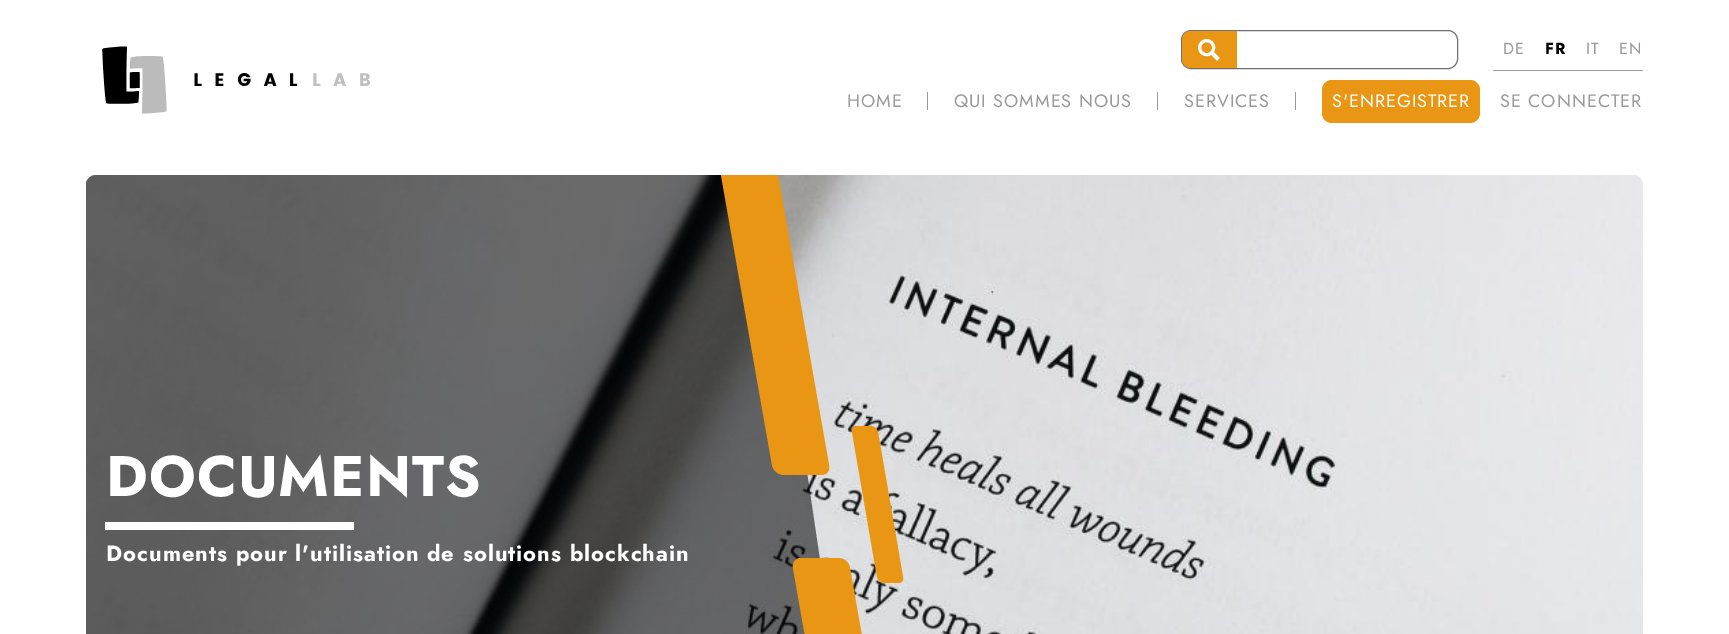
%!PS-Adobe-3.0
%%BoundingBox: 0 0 1729 634
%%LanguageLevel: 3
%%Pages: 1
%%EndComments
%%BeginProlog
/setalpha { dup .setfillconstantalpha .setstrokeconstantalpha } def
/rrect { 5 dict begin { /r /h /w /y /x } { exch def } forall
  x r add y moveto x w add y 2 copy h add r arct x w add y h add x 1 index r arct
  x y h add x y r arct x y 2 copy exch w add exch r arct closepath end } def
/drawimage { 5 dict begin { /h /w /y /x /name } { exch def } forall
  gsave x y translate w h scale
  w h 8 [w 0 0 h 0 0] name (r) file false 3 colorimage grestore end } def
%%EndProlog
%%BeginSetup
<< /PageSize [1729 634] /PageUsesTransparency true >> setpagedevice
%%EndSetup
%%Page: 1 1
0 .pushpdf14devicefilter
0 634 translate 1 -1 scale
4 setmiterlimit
1 setgray
0 0 1729 634 rectfill
0.439 setgray
1181.5 30.5 276 38 9.5 rrect stroke
0.91 0.588 0.075 setrgbcolor
newpath 1191 31 moveto 1237 31 lineto 1237 68 lineto 1191 68 lineto 1186 68 1182 64 1182 59 curveto 1182 40 lineto 1182 35 1186 31 1191 31 curveto closepath fill
(images/1.raw) 1198 39 22 22 drawimage
0.6 setgray
1493 70 150 1 rectfill
(images/2.raw) 102 46 268 68 drawimage
927 92 1 18 rectfill
1157 92 1 18 rectfill
1295 92 1 18 rectfill
0.91 0.588 0.075 setrgbcolor
1322 80 158 43 10 rrect fill
0.855 setgray
newpath 96 175 moveto 1633 175 lineto 1638.5 175 1643 179.5 1643 185 curveto 1643 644 lineto 86 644 lineto 86 185 lineto 86 179.5 90.5 175 96 175 curveto closepath fill
(images/3.raw) 86 175 1557 459 drawimage
0.55 setalpha
0 setgray
newpath 96 175 moveto 763 175 lineto 864 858 lineto 86 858 lineto 86 182 lineto 88 178 91 175 96 175 curveto closepath fill
1 setalpha
1 setgray
105 522 249 8 rectfill
0.91 0.588 0.075 setrgbcolor
newpath 721 175 moveto 778 175 lineto 829 465 lineto 830 471 827 475 821 475 curveto 784 475 lineto 779 475 773 471 772 465 curveto closepath fill
newpath 801 558 moveto 838 558 lineto 844 558 849 562 850 568 curveto 901 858 lineto 844 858 lineto 793 568 lineto 792 562 796 558 801 558 curveto closepath fill
newpath 857 426 moveto 871 426 lineto 874 426 877 429 878 432 curveto 903 577 lineto 904 580 902 583 898 583 curveto 884 583 lineto 881 583 878 580 877 577 curveto 852 432 lineto 851 429 853 426 857 426 curveto closepath fill
/Jost-Regular [16 0 0 -16 0 0] selectfont
0.6 setgray
1503 54 moveto 1 0 (DE) ashow
/Jost-Bold [16 0 0 -16 0 0] selectfont
0 setgray
1545 54 moveto 1 0 (FR) ashow
/Jost-Regular [16 0 0 -16 0 0] selectfont
0.6 setgray
1586 54 moveto 1 0 (IT) ashow
1619 54 moveto 1 0 (EN) ashow
/Jost-Regular [18 0 0 -18 0 0] selectfont
847 107 moveto 1 0 (HOME) ashow
954 107 moveto 1 0 (QUI SOMMES NOUS) ashow
1184 107 moveto 1 0 (SERVICES) ashow
1 setgray
1332 107 moveto 1 0 (S'ENREGISTRER) ashow
0.6 setgray
1500 107 moveto 1 0 (SE CONNECTER) ashow
/Jost-Bold [57 0 0 -57 0 0] selectfont
1 setgray
106 496 moveto 1 0 (DOCUMENTS) ashow
/Jost-Bold [22 0 0 -22 0 0] selectfont
106 561 moveto 1 0 (Documents pour l'utilisation de solutions blockchain) ashow
.poppdf14devicefilter showpage
%%EOF
